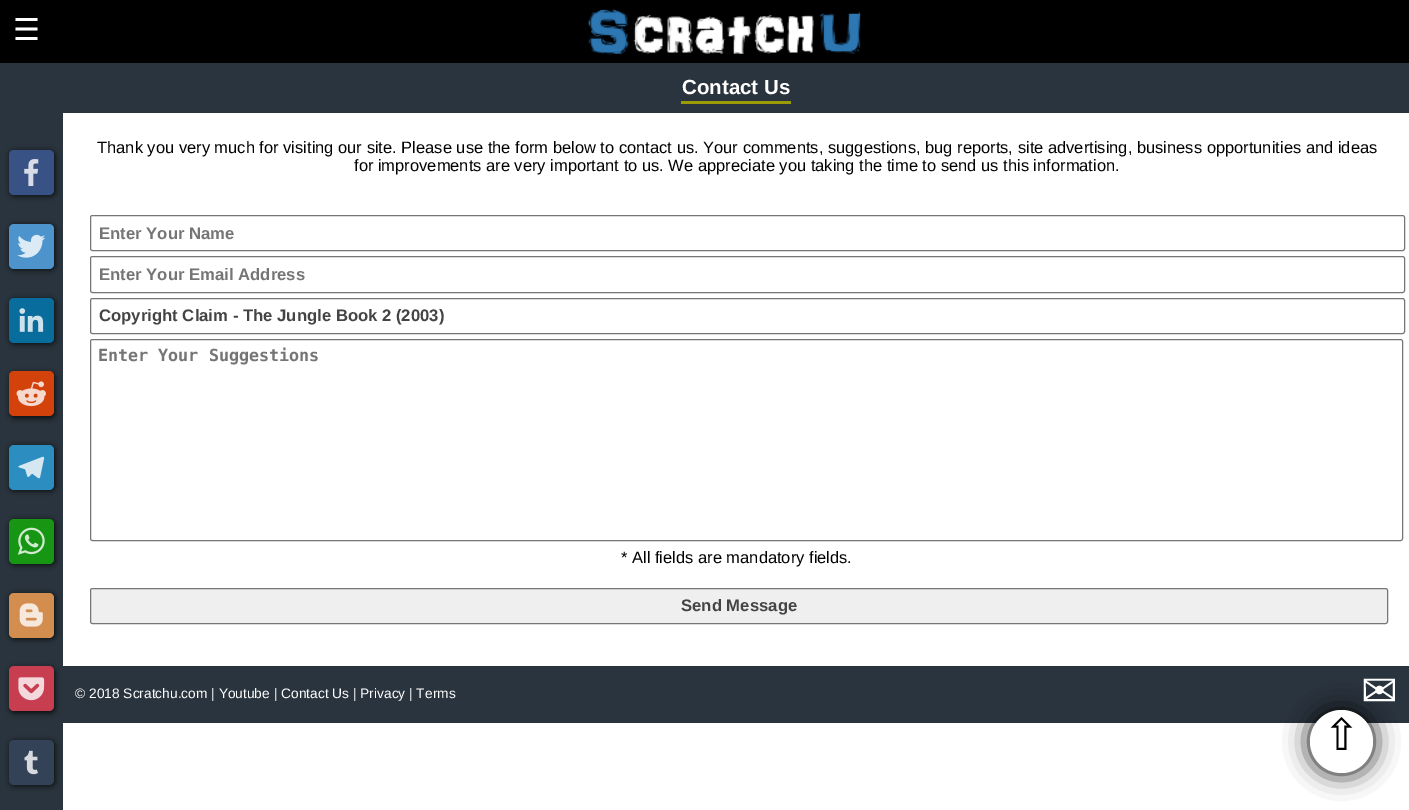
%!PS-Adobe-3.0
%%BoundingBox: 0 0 1409 810
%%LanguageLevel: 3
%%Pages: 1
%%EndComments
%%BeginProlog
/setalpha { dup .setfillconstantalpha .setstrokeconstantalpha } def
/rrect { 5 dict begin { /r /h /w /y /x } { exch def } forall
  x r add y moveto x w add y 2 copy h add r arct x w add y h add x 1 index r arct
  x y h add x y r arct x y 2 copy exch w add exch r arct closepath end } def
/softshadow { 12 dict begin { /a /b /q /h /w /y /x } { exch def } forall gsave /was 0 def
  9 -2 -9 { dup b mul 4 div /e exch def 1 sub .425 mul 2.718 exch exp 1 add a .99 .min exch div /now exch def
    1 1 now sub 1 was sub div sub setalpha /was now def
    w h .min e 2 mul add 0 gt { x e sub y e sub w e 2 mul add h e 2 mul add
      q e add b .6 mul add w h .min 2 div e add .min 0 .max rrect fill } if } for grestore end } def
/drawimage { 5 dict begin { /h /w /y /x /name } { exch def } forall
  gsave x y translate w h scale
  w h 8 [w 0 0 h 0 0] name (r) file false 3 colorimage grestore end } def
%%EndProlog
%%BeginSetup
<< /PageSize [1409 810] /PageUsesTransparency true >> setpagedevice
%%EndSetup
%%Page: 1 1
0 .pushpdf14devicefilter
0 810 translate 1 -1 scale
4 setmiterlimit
1 setgray
0 0 1409 810 rectfill
0 setgray
0 0 1409 63 rectfill
(images/1.raw) 587 8 274 47 drawimage
0.165 0.204 0.243 setrgbcolor
63 63 1346 50 rectfill
0.608 0.608 0.027 setrgbcolor
681 101 110 3 rectfill
0.463 setgray
90.5 215.5 1314 35 2 rrect stroke
90.5 256.5 1314 36 2 rrect stroke
90.5 298.5 1314 35 2 rrect stroke
90.5 339.5 1312 201 2 rrect stroke
0.937 setgray
90.5 588.5 1297 35 2 rrect gsave fill grestore
0.463 setgray
stroke
0.165 0.204 0.243 setrgbcolor
0 63 63 747 rectfill
0.031 0.039 0.047 setrgbcolor
10 668 45 45 5 3 1 softshadow
0.165 0.204 0.243 setrgbcolor
63 666 1346 57 rectfill
0 setgray
1310 710 63 63 31.5 12.5 1 softshadow
1 setgray
newpath 1341.5 741.5 31.5 0 360 arc closepath fill
0.031 0.039 0.047 setrgbcolor
10 151 45 45 5 3 1 softshadow
0.22 0.322 0.525 setrgbcolor
9 150 45 45 5 rrect fill
(images/2.raw) 24 159 15 27 drawimage
0.031 0.039 0.047 setrgbcolor
10 225 45 45 5 3 1 softshadow
0.298 0.58 0.796 setrgbcolor
9 224 45 45 5 rrect fill
(images/3.raw) 17 234 29 24 drawimage
0.031 0.039 0.047 setrgbcolor
10 299 45 45 5 3 1 softshadow
0.031 0.427 0.616 setrgbcolor
9 298 45 45 5 rrect fill
(images/4.raw) 19 308 25 24 drawimage
0.031 0.039 0.047 setrgbcolor
10 373 45 45 5 3 1 softshadow
0.831 0.259 0.047 setrgbcolor
9 371 45 45 5 rrect fill
(images/5.raw) 16 381 30 26 drawimage
0.031 0.039 0.047 setrgbcolor
10 446 45 45 5 3 1 softshadow
0.173 0.557 0.753 setrgbcolor
9 445 45 45 5 rrect fill
(images/6.raw) 18 456 27 23 drawimage
0.031 0.039 0.047 setrgbcolor
10 520 45 45 5 3 1 softshadow
0.09 0.588 0.078 setrgbcolor
9 519 45 45 5 rrect fill
(images/7.raw) 17 527 28 28 drawimage
0.031 0.039 0.047 setrgbcolor
10 594 45 45 5 3 1 softshadow
0.827 0.553 0.306 setrgbcolor
9 593 45 45 5 rrect fill
(images/8.raw) 19 603 24 24 drawimage
0.78 0.243 0.318 setrgbcolor
9 666 45 45 5 rrect fill
(images/9.raw) 18 677 27 24 drawimage
0.031 0.039 0.047 setrgbcolor
10 741 45 45 5 3 1 softshadow
0.2 0.259 0.337 setrgbcolor
9 740 45 45 5 rrect fill
(images/10.raw) 24 750 14 25 drawimage
/DejaVuSans-Regular [30 0 0 -30 0 0] selectfont
1 setgray
13 40 moveto (☰) show
/LiberationSans-Bold [20.5 0 0 -20.5 0 0] selectfont
682 94 moveto (Contact Us) show
/LiberationSans-Regular [16.5 0 0 -16.5 0 0] selectfont
0 setgray
97 153 moveto (Thank you very much for visiting our site. Please use the form below to contact us. Your comments, suggestions, bug reports, site advertising, business opportunities and ideas) show
354 171 moveto (for improvements are very important to us. We appreciate you taking the time to send us this information.) show
/LiberationSans-Bold [16.7 0 0 -16.7 0 0] selectfont
0.459 setgray
99 239 moveto (Enter Your Name) show
99 280 moveto (Enter Your Email Address) show
0.267 setgray
99 321 moveto (Copyright Claim - The Jungle Book 2 \(2003\)) show
/DejaVuSansMono-Bold [16.7 0 0 -16.7 0 0] selectfont
0.459 setgray
98 361 moveto (Enter Your Suggestions) show
/LiberationSans-Regular [16.5 0 0 -16.5 0 0] selectfont
0 setgray
621 563 moveto (* All fields are mandatory fields.) show
/LiberationSans-Bold [16.7 0 0 -16.7 0 0] selectfont
0.267 setgray
681 611 moveto (Send Message) show
/LiberationSans-Regular [13.75 0 0 -13.75 0 0] selectfont
1 setgray
75 698 moveto (© 2018 Scratchu.com | Youtube | Contact Us | Privacy | Terms) show
/DejaVuSans-Regular [44 0 0 -44 0 0] selectfont
1361 706 moveto (✉) show
0 setgray
1323 750 moveto (⇧) show
.poppdf14devicefilter showpage
%%EOF
